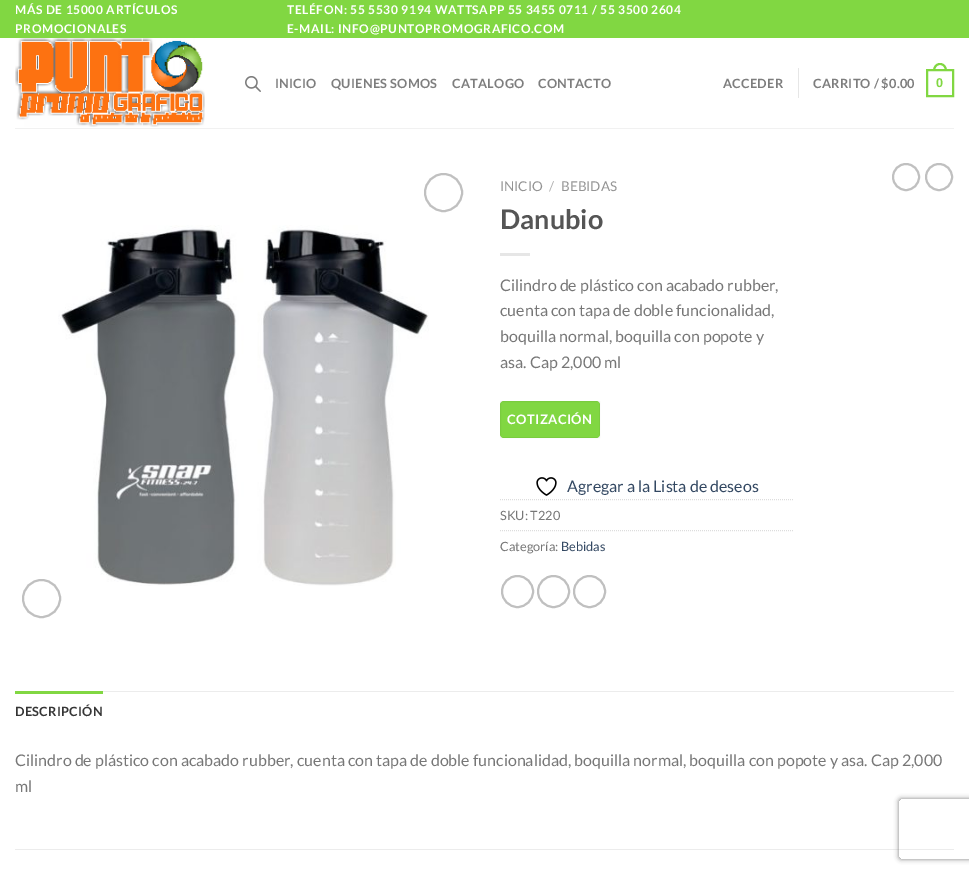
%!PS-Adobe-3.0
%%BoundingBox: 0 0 969 873
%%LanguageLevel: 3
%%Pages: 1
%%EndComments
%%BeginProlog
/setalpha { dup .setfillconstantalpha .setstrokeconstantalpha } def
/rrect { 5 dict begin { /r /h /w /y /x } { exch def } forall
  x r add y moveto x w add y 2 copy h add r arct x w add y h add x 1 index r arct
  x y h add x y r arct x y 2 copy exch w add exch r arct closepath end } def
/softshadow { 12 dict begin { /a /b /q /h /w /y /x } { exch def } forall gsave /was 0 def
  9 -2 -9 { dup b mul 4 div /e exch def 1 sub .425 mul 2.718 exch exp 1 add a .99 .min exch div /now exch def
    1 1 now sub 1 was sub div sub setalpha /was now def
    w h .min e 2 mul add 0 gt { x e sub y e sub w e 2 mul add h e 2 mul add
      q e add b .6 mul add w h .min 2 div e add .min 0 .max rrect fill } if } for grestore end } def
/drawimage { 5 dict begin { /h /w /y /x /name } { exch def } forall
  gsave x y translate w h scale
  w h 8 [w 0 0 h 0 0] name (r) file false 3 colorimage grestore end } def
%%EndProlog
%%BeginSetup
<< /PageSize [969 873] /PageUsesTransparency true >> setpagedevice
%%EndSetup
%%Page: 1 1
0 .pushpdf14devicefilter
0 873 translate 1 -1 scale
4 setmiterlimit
1 setgray
0 0 969 873 rectfill
0.506 0.843 0.259 setrgbcolor
0 0 969 38 rectfill
(images/1.raw) 15 38 190 89 drawimage
(images/2.raw) 245 76 16 16 drawimage
0.902 setgray
798 68 1 30 rectfill
0.506 0.843 0.259 setrgbcolor
2 setlinewidth
927 70 26 26 rectstroke
newpath 940 63 moveto 944.5 63 947 67 947 71 curveto 933 71 lineto 933 67 935.5 63 940 63 curveto closepath 940 65 moveto 943.5 65 945 68 945 71 curveto 935 71 lineto 935 68 936.5 65 940 65 curveto closepath eofill
0.945 setgray
15 128 939 1 rectfill
0.753 setgray
newpath 443.5 192.5 18.5 0 360 arc closepath stroke
(images/3.raw) 58 225 371 361 drawimage
newpath 41.5 598.5 18.5 0 360 arc closepath stroke
0.902 setgray
500 253 30 3 rectfill
0.506 0.843 0.259 setrgbcolor
500 401 100 37 4 rrect fill
0.05 setalpha
0 setgray
1 setlinewidth
500.5 401.5 99 36 rectstroke
1 setalpha
(images/4.raw) 536 477 21 19 drawimage
0.867 setgray
[1 1] 0 setdash
newpath 500 499.5 moveto 793 499.5 lineto stroke
newpath 500 530.5 moveto 793 530.5 lineto stroke
0.753 setgray
2 setlinewidth
[] 0 setdash
newpath 517.5 591.5 15.5 0 360 arc closepath stroke
newpath 553.5 591.5 15.5 0 360 arc closepath stroke
newpath 589.5 591.5 15.5 0 360 arc closepath stroke
newpath 906 177 13 0 360 arc closepath stroke
newpath 939 177 13 0 360 arc closepath stroke
0.925 setgray
103 691 851 1 rectfill
0.506 0.843 0.259 setrgbcolor
15 691 88 3 rectfill
0.925 setgray
15 849 939 1 rectfill
gsave
newpath 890 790 moveto 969 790 lineto 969 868 lineto 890 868 lineto closepath 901 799 moveto 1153 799 lineto 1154 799 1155 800 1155 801 curveto 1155 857 lineto 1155 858 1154 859 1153 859 curveto 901 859 lineto 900 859 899 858 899 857 curveto 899 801 lineto 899 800 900 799 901 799 curveto closepath eoclip newpath
0.502 setgray
899 799 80 60 2 2.5 1 softshadow
grestore
/Lato-Bold [12 0 0 -12 0 0] selectfont
1 setgray
15 14 moveto 0.6 0 (MÁS DE 15000 ARTÍCULOS) ashow
15 33 moveto 0.6 0 (PROMOCIONALES) ashow
287 14 moveto 0.6 0 (TELÉFON: 55 5530 9194 WATTSAPP 55 3455 0711 / 55 3500 2604) ashow
287 33 moveto 0.6 0 (E-MAIL: INFO@PUNTOPROMOGRAFICO.COM) ashow
/Lato-Bold [12.75 0 0 -12.75 0 0] selectfont
0.49 setgray
275 88 moveto 0.25 0 (INICIO) ashow
331 88 moveto 0.25 0 (QUIENES SOMOS) ashow
452 88 moveto 0.25 0 (CATALOGO) ashow
538 88 moveto 0.25 0 (CONTACTO) ashow
723 88 moveto 0.25 0 (ACCEDER) ashow
813 88 moveto 0.25 0 (CARRITO / $0.00) ashow
/LiberationSans-Bold [12.75 0 0 -12.75 0 0] selectfont
0.506 0.843 0.259 setrgbcolor
936 87 moveto 0.25 0 (0) ashow
/Lato-Regular [13.5 0 0 -13.5 0 0] selectfont
0.58 setgray
500 191 moveto (INICIO) show
0.698 setgray
549 191 moveto (/) show
0.58 setgray
561 191 moveto (BEBIDAS) show
/Lato-Bold [27 0 0 -27 0 0] selectfont
0.333 setgray
500 229 moveto (Danubio) show
/Lato-Regular [16 0 0 -16 0 0] selectfont
0.467 setgray
500 291 moveto (Cilindro de plástico con acabado rubber,) show
500 316 moveto (cuenta con tapa de doble funcionalidad,) show
500 342 moveto (boquilla normal, boquilla con popote y) show
500 368 moveto (asa. Cap 2,000 ml) show
/Lato-Bold [13 0 0 -13 0 0] selectfont
1 setgray
507 424 moveto 0.4 0 (COTIZACIÓN) ashow
/Lato-Regular [16 0 0 -16 0 0] selectfont
0.2 0.282 0.384 setrgbcolor
567 492 moveto (Agregar a la Lista de deseos) show
/Lato-Regular [12.75 0 0 -12.75 0 0] selectfont
0.467 setgray
500 520 moveto (SKU: T220) show
500 551 moveto (Categoría:) show
0.2 0.282 0.384 setrgbcolor
561 551 moveto (Bebidas) show
/Lato-Bold [12.75 0 0 -12.75 0 0] selectfont
0.208 setgray
15 716 moveto 0.25 0 (DESCRIPCIÓN) ashow
/Lato-Regular [16 0 0 -16 0 0] selectfont
0.467 setgray
15 766 moveto (Cilindro de plástico con acabado rubber, cuenta con tapa de doble funcionalidad, boquilla normal, boquilla con popote y asa. Cap 2,000) show
15 792 moveto (ml) show
.poppdf14devicefilter showpage
%%EOF
